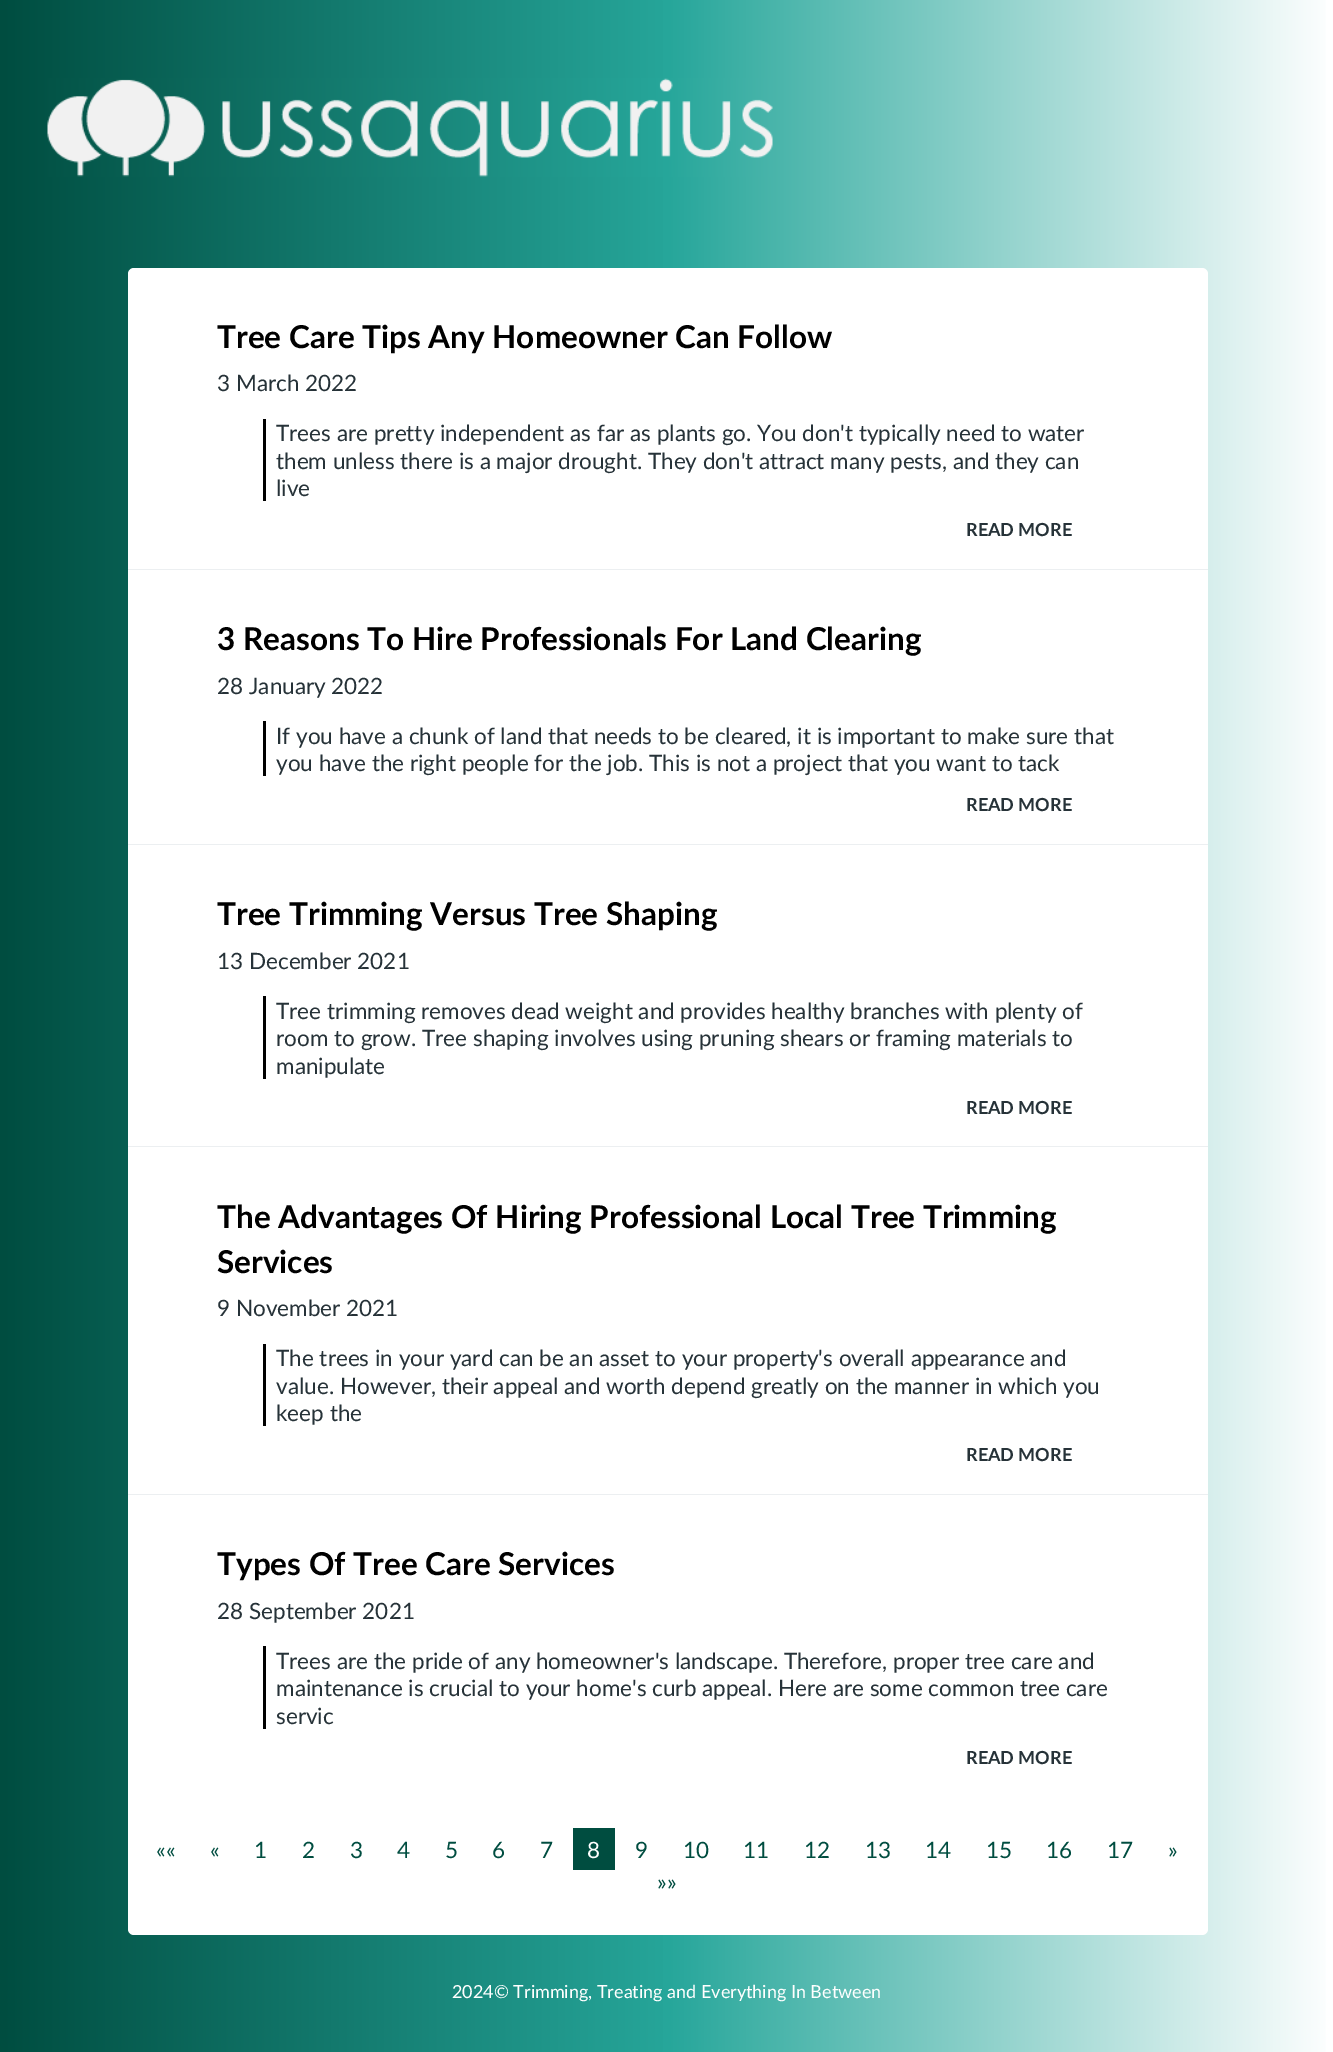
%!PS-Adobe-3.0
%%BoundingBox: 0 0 1333 2052
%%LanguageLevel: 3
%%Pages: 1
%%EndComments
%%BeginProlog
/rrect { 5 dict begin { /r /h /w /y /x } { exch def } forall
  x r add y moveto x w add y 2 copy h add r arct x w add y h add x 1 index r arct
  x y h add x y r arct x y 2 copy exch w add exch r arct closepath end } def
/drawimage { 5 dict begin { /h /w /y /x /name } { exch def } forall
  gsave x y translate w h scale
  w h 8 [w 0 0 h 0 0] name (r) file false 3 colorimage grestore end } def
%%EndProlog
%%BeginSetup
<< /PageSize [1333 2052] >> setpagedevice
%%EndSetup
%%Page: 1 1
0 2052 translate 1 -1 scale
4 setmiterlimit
1 setgray
0 0 1333 2052 rectfill
gsave newpath 0 0 moveto 1326 0 lineto 1326 2052 lineto 0 2052 lineto closepath clip newpath
<< /ShadingType 2 /ColorSpace /DeviceRGB /Coords [0 1034 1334 1034] /Extend [true true] /Function << /FunctionType 3 /Domain [0 1] /Functions [<< /FunctionType 2 /Domain [0 1] /C0 [0 0.302 0.251] /C1 [0.149 0.651 0.604] /N 1 >> << /FunctionType 2 /Domain [0 1] /C0 [0.149 0.651 0.604] /C1 [1 1 1] /N 1 >>] /Bounds [0.5] /Encode [0 1 0 1] >> >> shfill grestore
(images/1.raw) 47 78 726 99 drawimage
128 268 1080 1667 6 rrect fill
0.925 0.937 0.945 setrgbcolor
128 569 1080 1 rectfill
0 setgray
263 419 3 82 rectfill
0.925 0.937 0.945 setrgbcolor
128 844 1080 1 rectfill
0 setgray
263 721 3 55 rectfill
0.925 0.937 0.945 setrgbcolor
128 1146 1080 1 rectfill
0 setgray
263 996 3 83 rectfill
0.925 0.937 0.945 setrgbcolor
128 1494 1080 1 rectfill
0 setgray
263 1344 3 82 rectfill
263 1646 3 83 rectfill
0 0.302 0.251 setrgbcolor
573 1828 42 42 rectfill
/Lato-Bold [31.5 0 0 -31.5 0 0] selectfont
0 setgray
217 348 moveto (Tree Care Tips Any Homeowner Can Follow) show
/Lato-Regular [22.5 0 0 -22.5 0 0] selectfont
0.149 0.196 0.22 setrgbcolor
217 391 moveto (3 March 2022) show
276 441 moveto (Trees are pretty independent as far as plants go. You don't typically need to water) show
276 469 moveto (them unless there is a major drought. They don't attract many pests, and they can) show
276 496 moveto (live) show
/Lato-Bold [18 0 0 -18 0 0] selectfont
966 536 moveto (READ MORE) show
/Lato-Bold [31.5 0 0 -31.5 0 0] selectfont
0 setgray
217 650 moveto (3 Reasons To Hire Professionals For Land Clearing) show
/Lato-Regular [22.5 0 0 -22.5 0 0] selectfont
0.149 0.196 0.22 setrgbcolor
217 694 moveto (28 January 2022) show
276 744 moveto (If you have a chunk of land that needs to be cleared, it is important to make sure that) show
276 771 moveto (you have the right people for the job. This is not a project that you want to tack) show
/Lato-Bold [18 0 0 -18 0 0] selectfont
966 811 moveto (READ MORE) show
/Lato-Bold [31.5 0 0 -31.5 0 0] selectfont
0 setgray
217 925 moveto (Tree Trimming Versus Tree Shaping) show
/Lato-Regular [22.5 0 0 -22.5 0 0] selectfont
0.149 0.196 0.22 setrgbcolor
217 969 moveto (13 December 2021) show
276 1019 moveto (Tree trimming removes dead weight and provides healthy branches with plenty of) show
276 1046 moveto (room to grow. Tree shaping involves using pruning shears or framing materials to) show
276 1074 moveto (manipulate) show
/Lato-Bold [18 0 0 -18 0 0] selectfont
966 1114 moveto (READ MORE) show
/Lato-Bold [31.5 0 0 -31.5 0 0] selectfont
0 setgray
217 1228 moveto (The Advantages Of Hiring Professional Local Tree Trimming) show
217 1273 moveto (Services) show
/Lato-Regular [22.5 0 0 -22.5 0 0] selectfont
0.149 0.196 0.22 setrgbcolor
217 1316 moveto (9 November 2021) show
276 1366 moveto (The trees in your yard can be an asset to your property's overall appearance and) show
276 1394 moveto (value. However, their appeal and worth depend greatly on the manner in which you) show
276 1421 moveto (keep the) show
/Lato-Bold [18 0 0 -18 0 0] selectfont
966 1461 moveto (READ MORE) show
/Lato-Bold [31.5 0 0 -31.5 0 0] selectfont
0 setgray
217 1575 moveto (Types Of Tree Care Services) show
/Lato-Regular [22.5 0 0 -22.5 0 0] selectfont
0.149 0.196 0.22 setrgbcolor
217 1619 moveto (28 September 2021) show
276 1669 moveto (Trees are the pride of any homeowner's landscape. Therefore, proper tree care and) show
276 1696 moveto (maintenance is crucial to your home's curb appeal. Here are some common tree care) show
276 1724 moveto (servic) show
/Lato-Bold [18 0 0 -18 0 0] selectfont
966 1764 moveto (READ MORE) show
/Lato-Regular [22.5 0 0 -22.5 0 0] selectfont
0 0.302 0.251 setrgbcolor
156 1858 moveto (««) show
210 1858 moveto («) show
254 1858 moveto (1) show
302 1858 moveto (2) show
350 1858 moveto (3) show
397 1858 moveto (4) show
445 1858 moveto (5) show
492 1858 moveto (6) show
540 1858 moveto (7) show
1 setgray
587 1858 moveto (8) show
0 0.302 0.251 setrgbcolor
635 1858 moveto (9) show
683 1858 moveto (10) show
743 1858 moveto (11) show
804 1858 moveto (12) show
865 1858 moveto (13) show
925 1858 moveto (14) show
986 1858 moveto (15) show
1046 1858 moveto (16) show
1107 1858 moveto (17) show
1168 1858 moveto (») show
657 1890 moveto (»») show
/Lato-Regular [18 0 0 -18 0 0] selectfont
1 setgray
452 1998 moveto (2024© Trimming, Treating and Everything In Between) show
showpage
%%EOF
